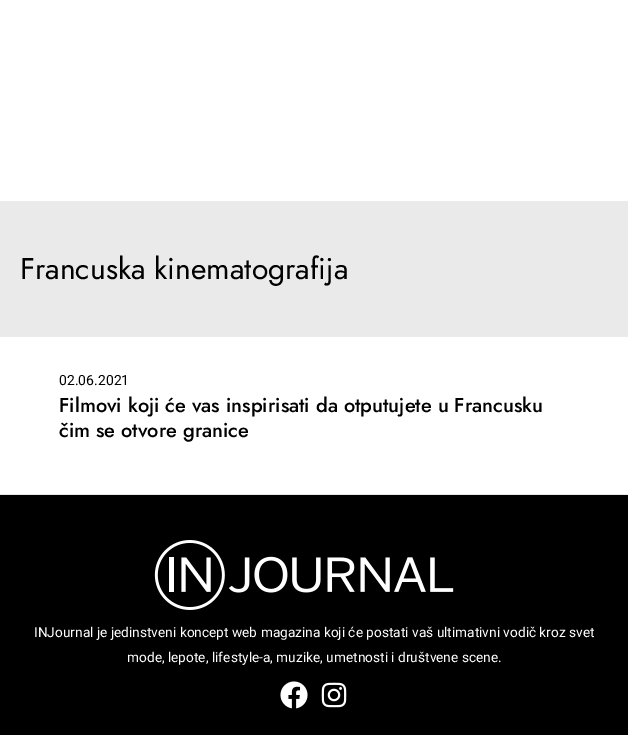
%!PS-Adobe-3.0
%%BoundingBox: 0 0 628 735
%%LanguageLevel: 3
%%Pages: 1
%%EndComments
%%BeginProlog
/drawimage { 5 dict begin { /h /w /y /x /name } { exch def } forall
  gsave x y translate w h scale
  w h 8 [w 0 0 h 0 0] name (r) file false 3 colorimage grestore end } def
%%EndProlog
%%BeginSetup
<< /PageSize [628 735] >> setpagedevice
%%EndSetup
%%Page: 1 1
0 735 translate 1 -1 scale
4 setmiterlimit
1 setgray
0 0 628 735 rectfill
0.918 setgray
0 201 628 136 rectfill
0 setgray
0 495 628 240 rectfill
0.902 setgray
0 494 628 1 rectfill
(images/1.raw) 154 540 300 70 drawimage
(images/2.raw) 280 681 28 28 drawimage
(images/3.raw) 321 682 26 26 drawimage
/Jost-Regular [30 0 0 -30 0 0] selectfont
0 setgray
20 279 moveto (Francuska kinematografija) show
/Roboto-Regular [14 0 0 -14 0 0] selectfont
59 385 moveto (02.06.2021) show
/Jost-Medium [20 0 0 -20 0 0] selectfont
59 412 moveto (Filmovi koji će vas inspirisati da otputujete u Francusku) show
59 437 moveto (čim se otvore granice) show
/Roboto-Regular [13.7 0 0 -13.7 0 0] selectfont
1 setgray
34 637 moveto (INJournal je jedinstveni koncept web magazina koji će postati vaš ultimativni vodič kroz svet) show
127 662 moveto (mode, lepote, lifestyle-a, muzike, umetnosti i društvene scene.) show
showpage
%%EOF
